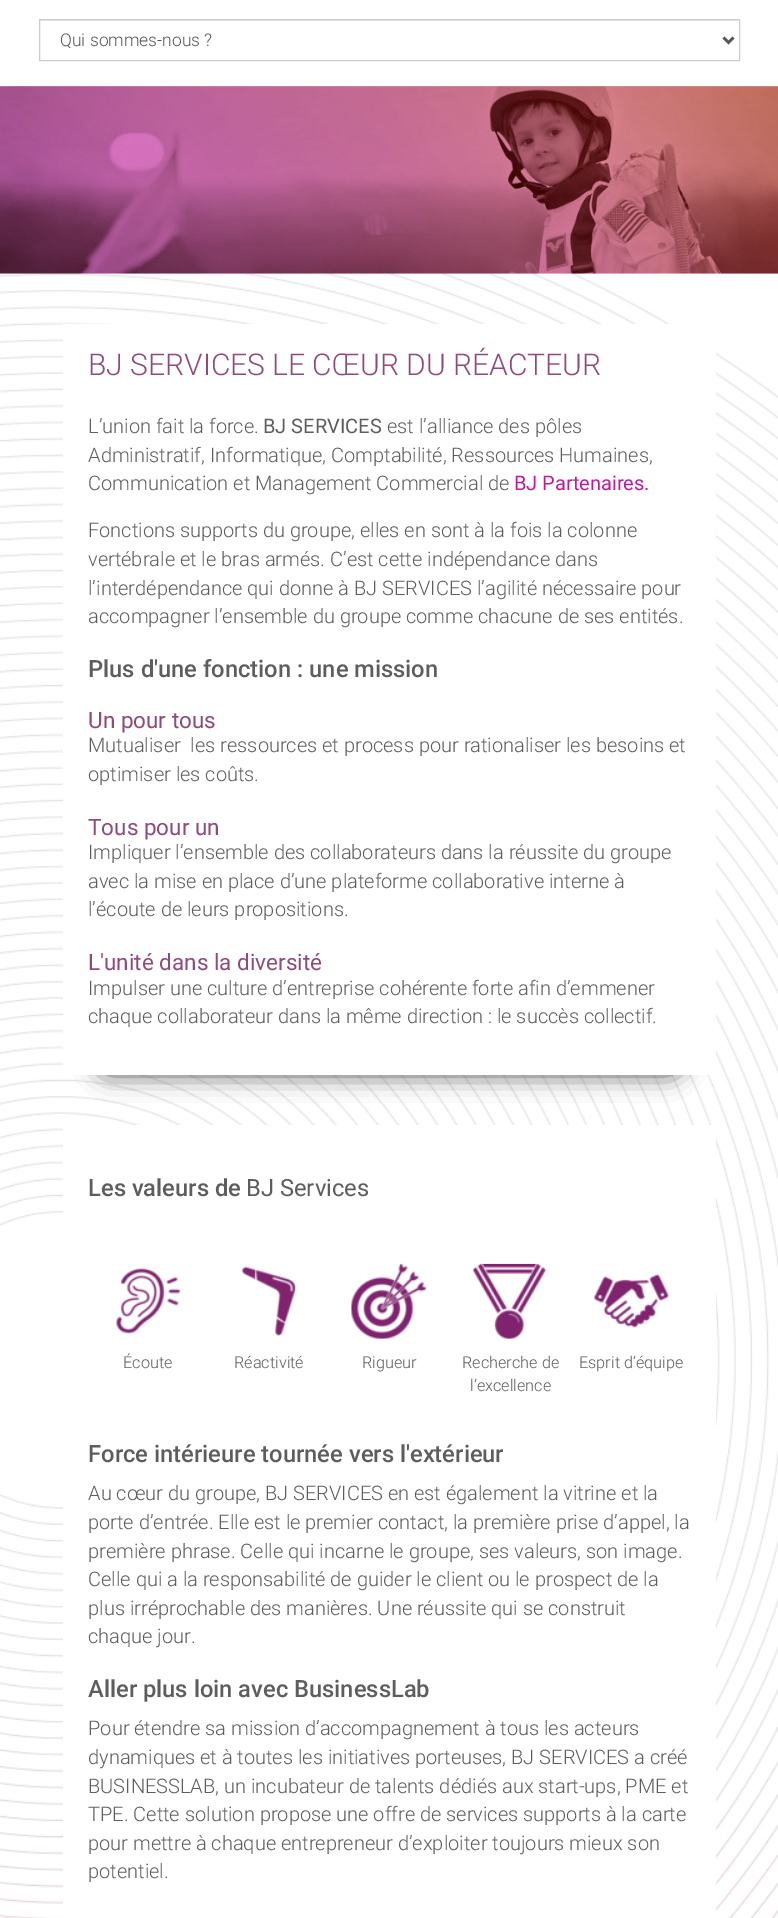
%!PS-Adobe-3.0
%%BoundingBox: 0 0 778 1918
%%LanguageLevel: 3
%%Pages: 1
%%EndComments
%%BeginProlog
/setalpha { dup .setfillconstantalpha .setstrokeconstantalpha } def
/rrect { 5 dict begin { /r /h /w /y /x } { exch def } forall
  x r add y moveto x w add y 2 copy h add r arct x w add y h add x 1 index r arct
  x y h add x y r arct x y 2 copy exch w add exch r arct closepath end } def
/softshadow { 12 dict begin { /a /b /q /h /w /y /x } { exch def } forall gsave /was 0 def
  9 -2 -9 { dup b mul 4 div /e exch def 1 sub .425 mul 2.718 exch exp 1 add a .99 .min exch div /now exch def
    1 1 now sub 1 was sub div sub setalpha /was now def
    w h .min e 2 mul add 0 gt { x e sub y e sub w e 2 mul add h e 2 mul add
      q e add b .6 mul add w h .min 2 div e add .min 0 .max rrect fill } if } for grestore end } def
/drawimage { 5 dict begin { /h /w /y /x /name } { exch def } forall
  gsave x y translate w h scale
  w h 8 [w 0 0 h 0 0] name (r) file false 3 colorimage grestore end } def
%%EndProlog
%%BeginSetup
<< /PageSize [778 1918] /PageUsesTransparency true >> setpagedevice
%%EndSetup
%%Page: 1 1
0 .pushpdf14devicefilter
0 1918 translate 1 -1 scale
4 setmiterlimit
1 setgray
0 0 778 1918 rectfill
gsave
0 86 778 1 rectclip
0 setgray
0 -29 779 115 0 9.5 0.5 softshadow
grestore
0.925 setgray
40 20 699 1 rectfill
0.8 setgray
39.5 19.5 700 41 rectstroke
0.333 setgray
2.5 setlinewidth
newpath 723.5 37.5 moveto 728.5 42.5 lineto 733.5 37.5 lineto stroke
(images/1.raw) 0 86 778 188 drawimage
(images/2.raw) 0 273 778 1645 drawimage
0.337 setgray
95 1013 589 62 15 12.5 1 softshadow
1 setgray
63 324 653 751 rectfill
63 1125 653 793 rectfill
(images/3.raw) 116 1268 65 66 drawimage
(images/4.raw) 241 1266 56 71 drawimage
(images/5.raw) 351 1263 76 76 drawimage
(images/6.raw) 472 1263 75 76 drawimage
(images/7.raw) 593 1274 76 54 drawimage
/Roboto-Light [17.5 0 0 -17.5 0 0] selectfont
0.333 setgray
60 46 moveto (Qui sommes-nous ?) show
/Roboto-Light [30 0 0 -30 0 0] selectfont
0.569 0.286 0.486 setrgbcolor
88 375 moveto (BJ SERVICES LE CŒUR DU RÉACTEUR) show
/Roboto-Light [20 0 0 -20 0 0] selectfont
0.365 setgray
88 433 moveto (L’union fait la force.) show
/Roboto-Regular [20 0 0 -20 0 0] selectfont
263 433 moveto (BJ SERVICES) show
/Roboto-Light [20 0 0 -20 0 0] selectfont
387 433 moveto (est l’alliance des pôles) show
88 462 moveto (Administratif, Informatique, Comptabilité, Ressources Humaines,) show
88 490 moveto (Communication et Management Commercial de) show
/Roboto-Regular [20 0 0 -20 0 0] selectfont
0.745 0.098 0.624 setrgbcolor
514 490 moveto (BJ Partenaires.) show
/Roboto-Light [20 0 0 -20 0 0] selectfont
0.365 setgray
88 537 moveto (Fonctions supports du groupe, elles en sont à la fois la colonne) show
88 566 moveto (vertébrale et le bras armés. C’est cette indépendance dans) show
88 595 moveto (l’interdépendance qui donne à BJ SERVICES l’agilité nécessaire pour) show
88 623 moveto (accompagner l’ensemble du groupe comme chacune de ses entités.) show
/Roboto-Medium [23.75 0 0 -23.75 0 0] selectfont
88 677 moveto (Plus d'une fonction : une mission) show
/Roboto-Regular [22.5 0 0 -22.5 0 0] selectfont
0.569 0.286 0.486 setrgbcolor
88 728 moveto (Un pour tous) show
/Roboto-Light [20 0 0 -20 0 0] selectfont
0.365 setgray
88 752 moveto (Mutualiser  les ressources et process pour rationaliser les besoins et) show
88 781 moveto (optimiser les coûts.) show
/Roboto-Regular [22.5 0 0 -22.5 0 0] selectfont
0.569 0.286 0.486 setrgbcolor
88 835 moveto (Tous pour un) show
/Roboto-Light [20 0 0 -20 0 0] selectfont
0.365 setgray
88 859 moveto (Impliquer l’ensemble des collaborateurs dans la réussite du groupe) show
88 888 moveto (avec la mise en place d’une plateforme collaborative interne à) show
88 916 moveto (l’écoute de leurs propositions.) show
/Roboto-Regular [22.5 0 0 -22.5 0 0] selectfont
0.569 0.286 0.486 setrgbcolor
88 970 moveto (L'unité dans la diversité) show
/Roboto-Light [20 0 0 -20 0 0] selectfont
0.365 setgray
88 995 moveto (Impulser une culture d’entreprise cohérente forte afin d’emmener) show
88 1023 moveto (chaque collaborateur dans la même direction : le succès collectif.) show
/Roboto-Medium [23.75 0 0 -23.75 0 0] selectfont
88 1196 moveto (Les valeurs de) show
/Roboto-Regular [23.75 0 0 -23.75 0 0] selectfont
246 1196 moveto (BJ Services) show
/Roboto-Light [16.25 0 0 -16.25 0 0] selectfont
123 1368 moveto (Écoute) show
234 1368 moveto (Réactivité) show
362 1368 moveto (Rigueur) show
462 1368 moveto (Recherche de) show
470 1391 moveto (l’excellence) show
579 1368 moveto (Esprit d’équipe) show
/Roboto-Medium [23.75 0 0 -23.75 0 0] selectfont
88 1462 moveto (Force intérieure tournée vers l'extérieur) show
/Roboto-Light [20 0 0 -20 0 0] selectfont
88 1500 moveto (Au cœur du groupe, BJ SERVICES en est également la vitrine et la) show
88 1529 moveto (porte d’entrée. Elle est le premier contact, la première prise d’appel, la) show
88 1558 moveto (première phrase. Celle qui incarne le groupe, ses valeurs, son image.) show
88 1586 moveto (Celle qui a la responsabilité de guider le client ou le prospect de la) show
88 1615 moveto (plus irréprochable des manières. Une réussite qui se construit) show
88 1643 moveto (chaque jour.) show
/Roboto-Medium [23.75 0 0 -23.75 0 0] selectfont
88 1697 moveto (Aller plus loin avec BusinessLab) show
/Roboto-Light [20 0 0 -20 0 0] selectfont
88 1735 moveto (Pour étendre sa mission d’accompagnement à tous les acteurs) show
88 1764 moveto (dynamiques et à toutes les initiatives porteuses, BJ SERVICES a créé) show
88 1793 moveto (BUSINESSLAB, un incubateur de talents dédiés aux start-ups, PME et) show
88 1821 moveto (TPE. Cette solution propose une offre de services supports à la carte) show
88 1850 moveto (pour mettre à chaque entrepreneur d’exploiter toujours mieux son) show
88 1878 moveto (potentiel.) show
.poppdf14devicefilter showpage
%%EOF
